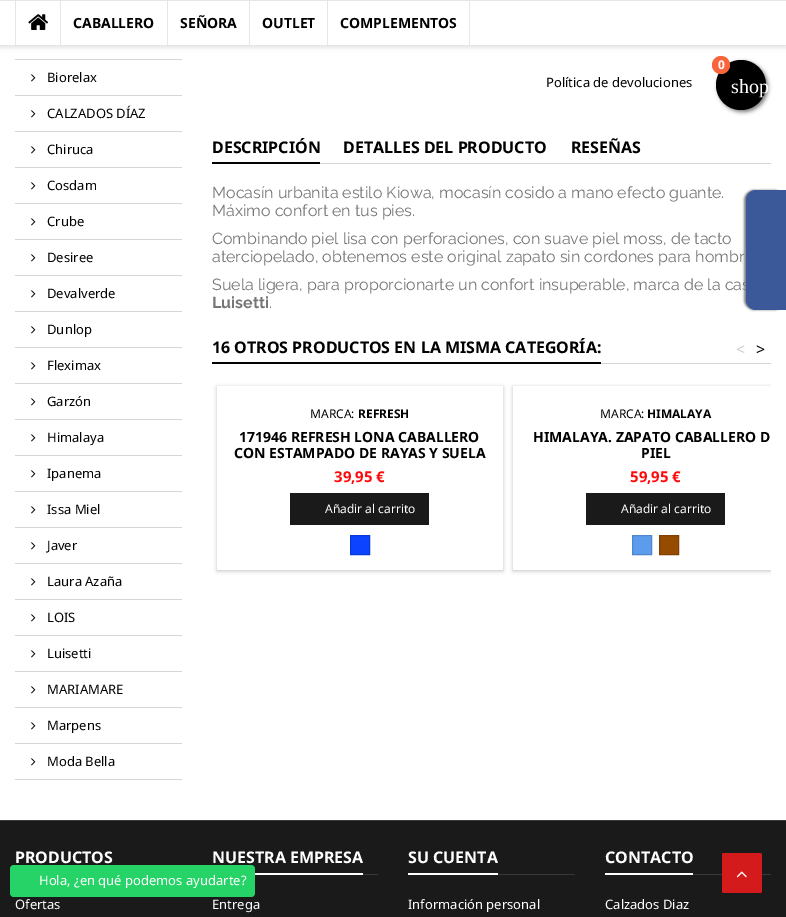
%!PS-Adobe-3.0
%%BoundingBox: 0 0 786 917
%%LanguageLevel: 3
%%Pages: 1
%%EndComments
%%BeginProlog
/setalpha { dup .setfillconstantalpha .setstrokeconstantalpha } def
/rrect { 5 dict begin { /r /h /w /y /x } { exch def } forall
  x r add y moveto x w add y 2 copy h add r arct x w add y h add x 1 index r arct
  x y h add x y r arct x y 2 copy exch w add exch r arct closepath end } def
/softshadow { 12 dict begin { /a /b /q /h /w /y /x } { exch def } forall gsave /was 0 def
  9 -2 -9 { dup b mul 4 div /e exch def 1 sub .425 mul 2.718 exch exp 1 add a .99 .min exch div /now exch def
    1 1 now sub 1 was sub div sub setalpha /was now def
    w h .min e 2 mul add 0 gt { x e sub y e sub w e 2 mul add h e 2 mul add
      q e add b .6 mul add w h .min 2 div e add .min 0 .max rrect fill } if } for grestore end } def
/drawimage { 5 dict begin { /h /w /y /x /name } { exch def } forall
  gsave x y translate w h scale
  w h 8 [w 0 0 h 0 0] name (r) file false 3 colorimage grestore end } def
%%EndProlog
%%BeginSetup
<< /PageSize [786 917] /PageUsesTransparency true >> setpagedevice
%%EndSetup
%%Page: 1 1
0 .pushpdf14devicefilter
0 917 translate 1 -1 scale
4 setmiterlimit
1 setgray
0 0 786 917 rectfill
0 setgray
0 2 786 46 0 2 0.1 softshadow
1 setgray
0 1 786 44 rectfill
0.902 setgray
0 0 786 1 rectfill
0 45 786 1 rectfill
15 1 1 44 rectfill
(images/1.raw) 28 14 21 16 drawimage
60 1 1 44 rectfill
167 1 1 44 rectfill
249 1 1 44 rectfill
469 1 1 44 rectfill
327 1 1 44 rectfill
0 setgray
718 62 50 50 25 2 0.5 softshadow
newpath 741 85 25 0 360 arc closepath fill
0.973 0.396 0.239 setrgbcolor
newpath 721 65 9 0 360 arc closepath fill
0.839 0.831 0.831 setrgbcolor
15 59 167 1 rectfill
15 95 167 1 rectfill
(images/2.raw) 31 74 5 8 drawimage
15 131 167 1 rectfill
(images/2.raw) 31 110 5 8 drawimage
15 167 167 1 rectfill
(images/2.raw) 31 146 5 8 drawimage
15 203 167 1 rectfill
(images/2.raw) 31 182 5 8 drawimage
15 239 167 1 rectfill
(images/2.raw) 31 218 5 8 drawimage
15 275 167 1 rectfill
(images/2.raw) 31 254 5 8 drawimage
15 311 167 1 rectfill
(images/2.raw) 31 290 5 8 drawimage
15 347 167 1 rectfill
(images/2.raw) 31 326 5 8 drawimage
15 383 167 1 rectfill
(images/2.raw) 31 362 5 8 drawimage
15 419 167 1 rectfill
(images/2.raw) 31 398 5 8 drawimage
15 455 167 1 rectfill
(images/2.raw) 31 434 5 8 drawimage
15 491 167 1 rectfill
(images/2.raw) 31 470 5 8 drawimage
15 527 167 1 rectfill
(images/2.raw) 31 506 5 8 drawimage
15 563 167 1 rectfill
(images/2.raw) 31 542 5 8 drawimage
15 599 167 1 rectfill
(images/2.raw) 31 578 5 8 drawimage
15 635 167 1 rectfill
(images/2.raw) 31 614 5 8 drawimage
15 671 167 1 rectfill
(images/2.raw) 31 650 5 8 drawimage
15 707 167 1 rectfill
(images/2.raw) 31 686 5 8 drawimage
15 743 167 1 rectfill
(images/2.raw) 31 722 5 8 drawimage
15 779 167 1 rectfill
(images/2.raw) 31 758 5 8 drawimage
320 163 451 1 rectfill
0 setgray
212 162 108 2 rectfill
0.839 0.831 0.831 setrgbcolor
601 363 170 1 rectfill
0 setgray
212 362 389 2 rectfill
gsave
newpath 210 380 moveto 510 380 lineto 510 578 lineto 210 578 lineto closepath 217 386 moveto 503 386 lineto 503 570 lineto 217 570 lineto closepath eoclip newpath
217 387 286 184 0 2 0.24 softshadow
grestore
0.106 0.102 0.106 setrgbcolor
290 493 139 32 rectfill
0.047 0.263 1 setrgbcolor
newpath 350.5 535.5 moveto 369.5 535.5 lineto 369.5 554.5 lineto 350.5 554.5 lineto closepath gsave fill grestore
0.039 0.224 0.851 setrgbcolor
stroke
gsave
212 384 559 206 rectclip
newpath 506 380 moveto 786 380 lineto 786 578 lineto 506 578 lineto closepath 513 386 moveto 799 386 lineto 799 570 lineto 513 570 lineto closepath eoclip newpath
0 setgray
513 387 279 184 0 2 0.24 softshadow
grestore
0.106 0.102 0.106 setrgbcolor
586 493 139 32 rectfill
0.365 0.612 0.925 setrgbcolor
newpath 632.5 535.5 moveto 651.5 535.5 lineto 651.5 554.5 lineto 632.5 554.5 lineto closepath gsave fill grestore
0.31 0.522 0.788 setrgbcolor
stroke
0.588 0.294 0 setrgbcolor
newpath 659.5 535.5 moveto 678.5 535.5 lineto 678.5 554.5 lineto 659.5 554.5 lineto closepath gsave fill grestore
0.502 0.251 0 setrgbcolor
stroke
0 setgray
744 190 40 120 10 1 0.5 softshadow
0.106 0.102 0.106 setrgbcolor
0 821 786 96 rectfill
0.22 setgray
0 820 786 1 rectfill
363 874 15 1 rectfill
1 setgray
255 873 108 2 rectfill
0.22 setgray
498 874 77 1 rectfill
1 setgray
408 873 90 2 rectfill
0.22 setgray
693 874 78 1 rectfill
1 setgray
605 873 88 2 rectfill
0.831 0.106 0.106 setrgbcolor
722 853 40 40 2 rrect fill
(images/3.raw) 736 871 11 7 drawimage
0.145 0.827 0.4 setrgbcolor
10 865 245 32 4 rrect fill
/NotoSans-Bold [14 0 0 -14 0 0] selectfont
0 setgray
73 28 moveto (CABALLERO) show
180 28 moveto (SEÑORA) show
262 28 moveto (OUTLET) show
340 28 moveto (COMPLEMENTOS) show
/NotoSans-Bold [12 0 0 -12 0 0] selectfont
1 setgray
718 69 moveto (0) show
/LiberationSerif-Regular [20 0 0 -20 0 0] selectfont
731 93 moveto (shop) show
/NotoSans-Regular [13 0 0 -13 0 0] selectfont
0 setgray
47 82 moveto (Biorelax) show
47 118 moveto (CALZADOS DÍAZ) show
47 154 moveto (Chiruca) show
47 190 moveto (Cosdam) show
47 226 moveto (Crube) show
47 262 moveto (Desiree) show
47 298 moveto (Devalverde) show
47 334 moveto (Dunlop) show
47 370 moveto (Fleximax) show
47 406 moveto (Garzón) show
47 442 moveto (Himalaya) show
47 478 moveto (Ipanema) show
47 514 moveto (Issa Miel) show
47 550 moveto (Javer) show
47 586 moveto (Laura Azaña) show
47 622 moveto (LOIS) show
47 658 moveto (Luisetti) show
47 694 moveto (MARIAMARE) show
47 730 moveto (Marpens) show
47 766 moveto (Moda Bella) show
546 87 moveto (Política de devoluciones) show
/NotoSans-Bold [16 0 0 -16 0 0] selectfont
212 153 moveto (DESCRIPCIÓN) show
343 153 moveto (DETALLES DEL PRODUCTO) show
571 153 moveto (RESEÑAS) show
/Raleway-Regular [16 0 0 -16 0 0] selectfont
0.463 setgray
212 198 moveto (Mocasín urbanita estilo Kiowa, mocasín cosido a mano efecto guante.) show
212 216 moveto (Máximo confort en tus pies.) show
212 244 moveto (Combinando piel lisa con perforaciones, con suave piel moss, de tacto) show
212 262 moveto (aterciopelado, obtenemos este original zapato sin cordones para hombr) show
212 290 moveto (Suela ligera, para proporcionarte un confort insuperable, marca de la cas) show
/Raleway-Bold [16 0 0 -16 0 0] selectfont
212 308 moveto (Luisetti) show
/Raleway-Regular [16 0 0 -16 0 0] selectfont
269 308 moveto (.) show
/NotoSans-Bold [16 0 0 -16 0 0] selectfont
0 setgray
212 353 moveto (16 OTROS PRODUCTOS EN LA MISMA CATEGORÍA:) show
/NotoSans-Regular [16 0 0 -16 0 0] selectfont
0.8 setgray
736 355 moveto (<) show
0 setgray
756 355 moveto (>) show
/NotoSans-Regular [12 0 0 -12 0 0] selectfont
310 418 moveto (MARCA:) show
/NotoSans-Bold [12 0 0 -12 0 0] selectfont
358 418 moveto (REFRESH) show
/NotoSans-Bold [14 0 0 -14 0 0] selectfont
239 442 moveto (171946 REFRESH LONA CABALLERO) show
234 458 moveto (CON ESTAMPADO DE RAYAS Y SUELA) show
/NotoSans-Bold [15 0 0 -15 0 0] selectfont
1 0.039 0.039 setrgbcolor
334 482 moveto (39,95 €) show
/NotoSans-Regular [12 0 0 -12 0 0] selectfont
1 setgray
325 513 moveto (Añadir al carrito) show
0 setgray
600 418 moveto (MARCA:) show
/NotoSans-Bold [12 0 0 -12 0 0] selectfont
647 418 moveto (HIMALAYA) show
/NotoSans-Bold [14 0 0 -14 0 0] selectfont
533 442 moveto (HIMALAYA. ZAPATO CABALLERO D) show
641 458 moveto (PIEL) show
/NotoSans-Bold [15 0 0 -15 0 0] selectfont
1 0.039 0.039 setrgbcolor
630 482 moveto (59,95 €) show
/NotoSans-Regular [12 0 0 -12 0 0] selectfont
1 setgray
621 513 moveto (Añadir al carrito) show
0.231 0.349 0.596 setrgbcolor
newpath 756 190 moveto 786 190 lineto 786 310 lineto 756 310 lineto 750.5 310 746 305.5 746 300 curveto 746 200 lineto 746 194.5 750.5 190 756 190 curveto closepath fill
/NotoSans-Bold [16 0 0 -16 0 0] selectfont
1 setgray
15 863 moveto (PRODUCTOS) show
/NotoSans-Regular [13 0 0 -13 0 0] selectfont
15 909 moveto (Ofertas) show
/NotoSans-Bold [16 0 0 -16 0 0] selectfont
212 863 moveto (NUESTRA EMPRESA) show
/NotoSans-Regular [13 0 0 -13 0 0] selectfont
212 909 moveto (Entrega) show
/NotoSans-Bold [16 0 0 -16 0 0] selectfont
408 863 moveto (SU CUENTA) show
/NotoSans-Regular [13 0 0 -13 0 0] selectfont
408 909 moveto (Información personal) show
/NotoSans-Bold [16 0 0 -16 0 0] selectfont
605 863 moveto (CONTACTO) show
/NotoSans-Regular [13 0 0 -13 0 0] selectfont
605 909 moveto (Calzados Diaz) show
39 885 moveto (Hola, ¿en qué podemos ayudarte?) show
.poppdf14devicefilter showpage
%%EOF
